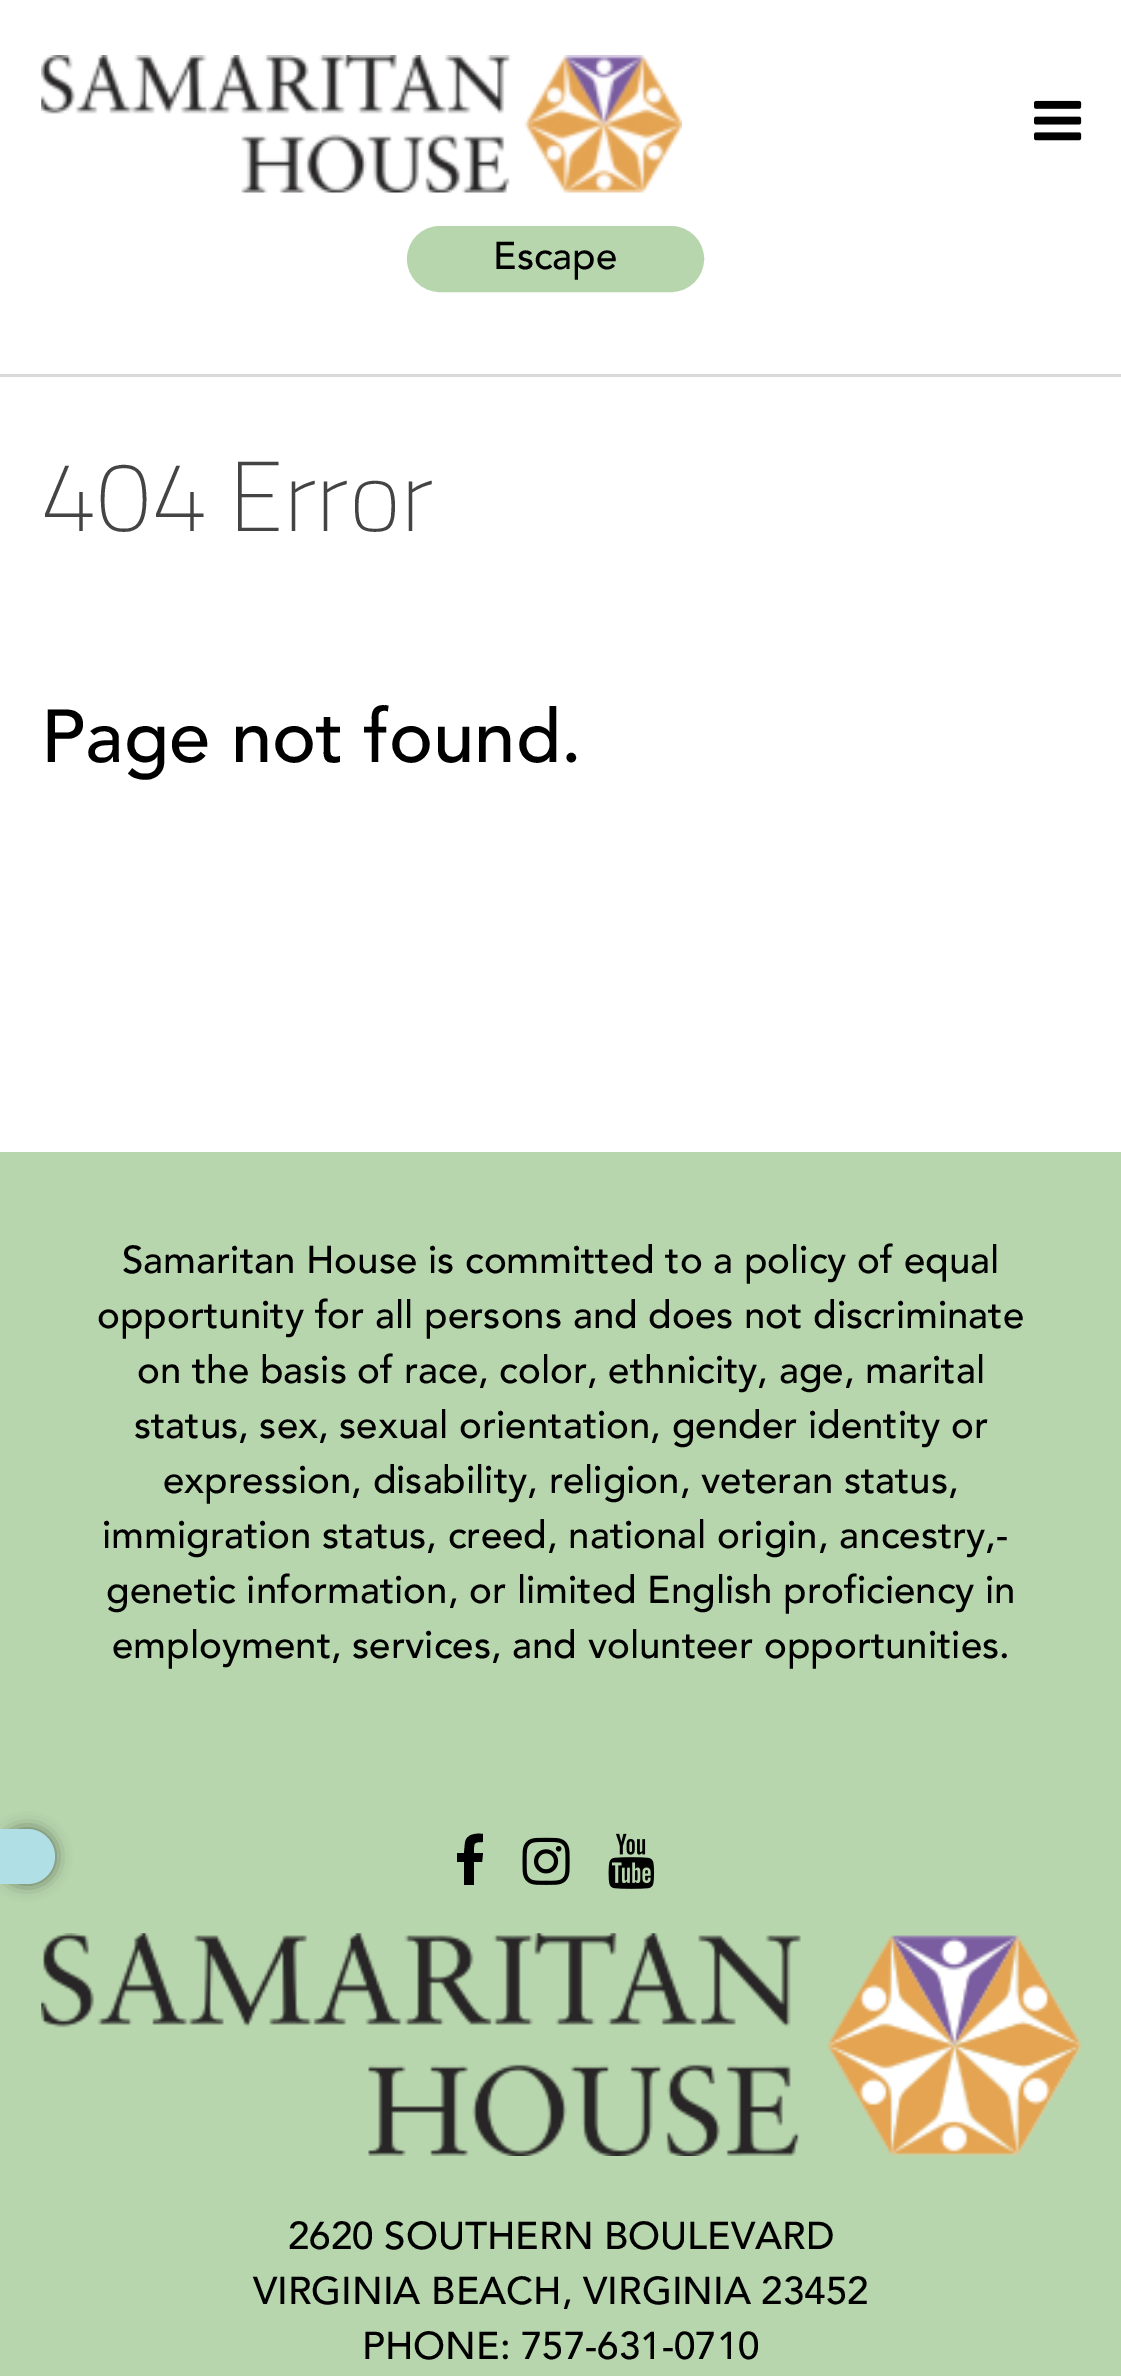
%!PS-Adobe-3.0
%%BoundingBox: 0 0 1121 2376
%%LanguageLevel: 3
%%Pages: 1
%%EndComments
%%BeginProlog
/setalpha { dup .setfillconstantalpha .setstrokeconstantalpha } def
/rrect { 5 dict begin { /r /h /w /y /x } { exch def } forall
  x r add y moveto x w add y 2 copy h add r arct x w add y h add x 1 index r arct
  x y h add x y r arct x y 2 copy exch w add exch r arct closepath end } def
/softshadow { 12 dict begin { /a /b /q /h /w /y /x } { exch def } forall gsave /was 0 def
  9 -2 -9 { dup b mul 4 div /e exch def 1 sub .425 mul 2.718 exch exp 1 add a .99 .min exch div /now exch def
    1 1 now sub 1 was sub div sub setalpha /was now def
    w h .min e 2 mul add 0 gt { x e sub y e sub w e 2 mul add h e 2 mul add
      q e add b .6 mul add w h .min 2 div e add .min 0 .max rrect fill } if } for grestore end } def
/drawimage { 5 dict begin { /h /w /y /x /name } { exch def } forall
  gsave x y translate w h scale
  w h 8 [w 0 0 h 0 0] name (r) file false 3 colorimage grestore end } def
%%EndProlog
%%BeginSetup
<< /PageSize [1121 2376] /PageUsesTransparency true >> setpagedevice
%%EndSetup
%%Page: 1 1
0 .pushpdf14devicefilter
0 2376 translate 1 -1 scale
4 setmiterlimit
1 setgray
0 0 1121 2376 rectfill
0.851 setgray
0 374 1121 3 rectfill
(images/1.raw) 1034 100 48 41 drawimage
(images/2.raw) 41 55 641 138 drawimage
0.722 0.839 0.682 setrgbcolor
408.5 227.5 294 63 31.5 rrect gsave fill grestore
3 setlinewidth
stroke
0 1152 1121 1224 rectfill
0 setgray
0 1829 55 55 27.5 8 0.5 softshadow
0.69 0.878 0.902 setrgbcolor
newpath 0 1829 moveto 27.5 1829 lineto 42.5 1829 55 1841.5 55 1856.5 curveto 55 1871.5 42.5 1884 27.5 1884 curveto 0 1884 lineto closepath fill
0 setgray
newpath 483 1834 moveto 483 1842 lineto 473 1842 474 1843 474 1853 curveto 483 1853 lineto 482 1862 lineto 474 1862 lineto 474 1885 lineto 464 1885 lineto 464 1862 lineto 457 1862 lineto 457 1853 lineto 464 1853 lineto 465 1843 lineto 466 1834 476 1833 483 1834 curveto closepath fill
(images/3.raw) 522 1837 48 48 drawimage
(images/4.raw) 608 1833 47 56 drawimage
(images/5.raw) 41 1933 1040 223 drawimage
/Avenir-Medium [38.5 0 0 -38.5 0 0] selectfont
493 269 moveto (Escape) show
/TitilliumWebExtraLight-ExtraLight [99 0 0 -99 0 0] selectfont
0.267 setgray
41 531 moveto (404 Error) show
/Avenir-Medium [74.25 0 0 -74.25 0 0] selectfont
0 setgray
41 762 moveto (Page not found.) show
/Avenir-Medium [38.5 0 0 -38.5 0 0] selectfont
122 1273 moveto (Samaritan House is committed to a policy of equal) show
97 1328 moveto (opportunity for all persons and does not discriminate) show
137 1383 moveto (on the basis of race, color, ethnicity, age, marital) show
134 1438 moveto (status, sex, sexual orientation, gender identity or) show
163 1493 moveto (expression, disability, religion, veteran status,) show
102 1548 moveto (immigration status, creed, national origin, ancestry,-) show
106 1603 moveto (genetic information, or limited English proficiency in) show
112 1658 moveto (employment, services, and volunteer opportunities.) show
288 2249 moveto (2620 SOUTHERN BOULEVARD) show
253 2304 moveto (VIRGINIA BEACH, VIRGINIA 23452) show
362 2359 moveto (PHONE: 757-631-0710) show
.poppdf14devicefilter showpage
%%EOF
